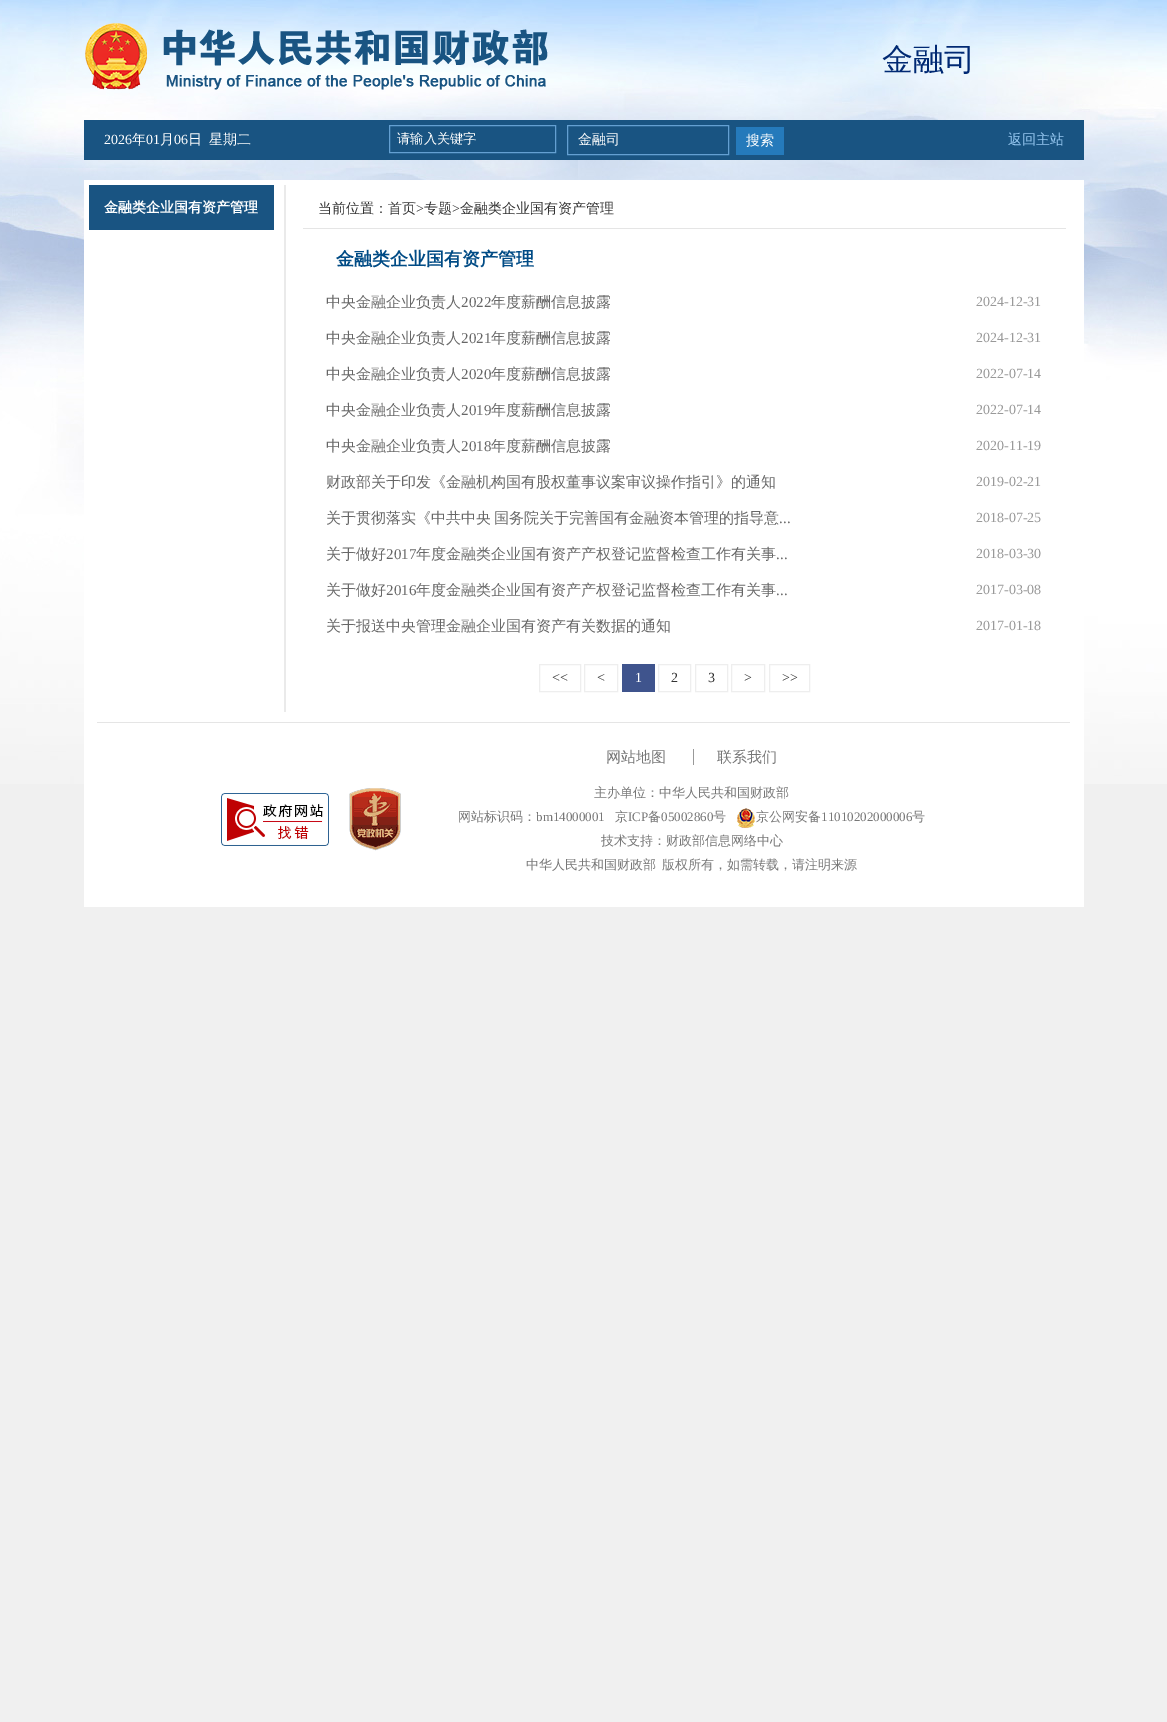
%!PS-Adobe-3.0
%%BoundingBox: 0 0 1167 1722
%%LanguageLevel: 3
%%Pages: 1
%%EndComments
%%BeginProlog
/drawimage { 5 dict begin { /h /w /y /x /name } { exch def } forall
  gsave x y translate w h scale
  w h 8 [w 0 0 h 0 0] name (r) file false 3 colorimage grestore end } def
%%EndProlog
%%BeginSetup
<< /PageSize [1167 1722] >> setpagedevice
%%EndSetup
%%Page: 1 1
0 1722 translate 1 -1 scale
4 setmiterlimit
0.941 setgray
0 0 1167 1722 rectfill
(images/1.raw) 0 0 1167 784 drawimage
(images/2.raw) 85 23 463 67 drawimage
0.098 0.329 0.51 setrgbcolor
84 120 1000 40 rectfill
0.392 0.627 0.824 setrgbcolor
389.5 125.5 166 27 rectstroke
567.5 125.5 161 29 rectstroke
0.145 0.478 0.733 setrgbcolor
736 127 48 28 rectfill
1 setgray
84 180 1000 727 rectfill
0.098 0.329 0.51 setrgbcolor
89 185 185 45 rectfill
0.918 setgray
284 185 2 527 rectfill
0.898 setgray
303 228 763 1 rectfill
0.933 setgray
539.5 664.5 41 27 rectstroke
584.5 664.5 33 27 rectstroke
0.247 0.329 0.553 setrgbcolor
622 664 33 28 rectfill
0.933 setgray
658.5 664.5 32 27 rectstroke
695.5 664.5 32 27 rectstroke
731.5 664.5 33 27 rectstroke
769.5 664.5 40 27 rectstroke
0.898 setgray
97 722 973 1 rectfill
(images/3.raw) 221 793 108 53 drawimage
(images/4.raw) 349 788 52 63 drawimage
0.6 setgray
693 749 1 16 rectfill
(images/5.raw) 737 808 18 20 drawimage
/WenQuanYiZenHei-Medium [31 0 0 -31 0 0] selectfont
0 0.161 0.451 setrgbcolor
882 70 moveto (金融司) show
/LiberationSerif-Regular [14 0 0 -14 0 0] selectfont
1 setgray
104 144 moveto (2026) show
/WenQuanYiZenHei-Medium [14 0 0 -14 0 0] selectfont
132 144 moveto (年) show
/LiberationSerif-Regular [14 0 0 -14 0 0] selectfont
146 144 moveto (01) show
/WenQuanYiZenHei-Medium [14 0 0 -14 0 0] selectfont
160 144 moveto (月) show
/LiberationSerif-Regular [14 0 0 -14 0 0] selectfont
174 144 moveto (06) show
/WenQuanYiZenHei-Medium [14 0 0 -14 0 0] selectfont
188 144 moveto (日) show
209 144 moveto (星期二) show
/WenQuanYiZenHei-Medium [13.25 0 0 -13.25 0 0] selectfont
397 143 moveto (请输入关键字) show
/WenQuanYiZenHei-Medium [14 0 0 -14 0 0] selectfont
578 144 moveto (金融司) show
746 145 moveto (搜索) show
0.596 0.788 0.949 setrgbcolor
1008 144 moveto (返回主站) show
/WenQuanYiZenHei-Bold [14 0 0 -14 0 0] selectfont
1 setgray
104 212 moveto (金融类企业国有资产管理) show
/WenQuanYiZenHei-Medium [14 0 0 -14 0 0] selectfont
0.2 setgray
318 213 moveto (当前位置：首页) show
/LiberationSerif-Regular [14 0 0 -14 0 0] selectfont
416 213 moveto (>) show
/WenQuanYiZenHei-Medium [14 0 0 -14 0 0] selectfont
424 213 moveto (专题) show
/LiberationSerif-Regular [14 0 0 -14 0 0] selectfont
452 213 moveto (>) show
/WenQuanYiZenHei-Medium [14 0 0 -14 0 0] selectfont
460 213 moveto (金融类企业国有资产管理) show
/WenQuanYiZenHei-Bold [18 0 0 -18 0 0] selectfont
0 0.294 0.522 setrgbcolor
336 265 moveto (金融类企业国有资产管理) show
/WenQuanYiZenHei-Medium [15 0 0 -15 0 0] selectfont
0.404 setgray
326 307 moveto (中央金融企业负责人) show
/LiberationSerif-Regular [15 0 0 -15 0 0] selectfont
461 307 moveto (2022) show
/WenQuanYiZenHei-Medium [15 0 0 -15 0 0] selectfont
491 307 moveto (年度薪酬信息披露) show
/LiberationSerif-Regular [14 0 0 -14 0 0] selectfont
0.6 setgray
976 306 moveto (2024-12-31) show
/WenQuanYiZenHei-Medium [15 0 0 -15 0 0] selectfont
0.404 setgray
326 343 moveto (中央金融企业负责人) show
/LiberationSerif-Regular [15 0 0 -15 0 0] selectfont
461 343 moveto (2021) show
/WenQuanYiZenHei-Medium [15 0 0 -15 0 0] selectfont
491 343 moveto (年度薪酬信息披露) show
/LiberationSerif-Regular [14 0 0 -14 0 0] selectfont
0.6 setgray
976 342 moveto (2024-12-31) show
/WenQuanYiZenHei-Medium [15 0 0 -15 0 0] selectfont
0.404 setgray
326 379 moveto (中央金融企业负责人) show
/LiberationSerif-Regular [15 0 0 -15 0 0] selectfont
461 379 moveto (2020) show
/WenQuanYiZenHei-Medium [15 0 0 -15 0 0] selectfont
491 379 moveto (年度薪酬信息披露) show
/LiberationSerif-Regular [14 0 0 -14 0 0] selectfont
0.6 setgray
976 378 moveto (2022-07-14) show
/WenQuanYiZenHei-Medium [15 0 0 -15 0 0] selectfont
0.404 setgray
326 415 moveto (中央金融企业负责人) show
/LiberationSerif-Regular [15 0 0 -15 0 0] selectfont
461 415 moveto (2019) show
/WenQuanYiZenHei-Medium [15 0 0 -15 0 0] selectfont
491 415 moveto (年度薪酬信息披露) show
/LiberationSerif-Regular [14 0 0 -14 0 0] selectfont
0.6 setgray
976 414 moveto (2022-07-14) show
/WenQuanYiZenHei-Medium [15 0 0 -15 0 0] selectfont
0.404 setgray
326 451 moveto (中央金融企业负责人) show
/LiberationSerif-Regular [15 0 0 -15 0 0] selectfont
461 451 moveto (2018) show
/WenQuanYiZenHei-Medium [15 0 0 -15 0 0] selectfont
491 451 moveto (年度薪酬信息披露) show
/LiberationSerif-Regular [14 0 0 -14 0 0] selectfont
0.6 setgray
976 450 moveto (2020-11-19) show
/WenQuanYiZenHei-Medium [15 0 0 -15 0 0] selectfont
0.404 setgray
326 487 moveto (财政部关于印发《金融机构国有股权董事议案审议操作指引》的通知) show
/LiberationSerif-Regular [14 0 0 -14 0 0] selectfont
0.6 setgray
976 486 moveto (2019-02-21) show
/WenQuanYiZenHei-Medium [15 0 0 -15 0 0] selectfont
0.404 setgray
326 523 moveto -1 0 32 (关于贯彻落实《中共中央 国务院关于完善国有金融资本管理的指导意) widthshow
/LiberationSerif-Regular [15 0 0 -15 0 0] selectfont
779 523 moveto (...) show
/LiberationSerif-Regular [14 0 0 -14 0 0] selectfont
0.6 setgray
976 522 moveto (2018-07-25) show
/WenQuanYiZenHei-Medium [15 0 0 -15 0 0] selectfont
0.404 setgray
326 559 moveto (关于做好) show
/LiberationSerif-Regular [15 0 0 -15 0 0] selectfont
386 559 moveto (2017) show
/WenQuanYiZenHei-Medium [15 0 0 -15 0 0] selectfont
416 559 moveto (年度金融类企业国有资产产权登记监督检查工作有关事) show
/LiberationSerif-Regular [15 0 0 -15 0 0] selectfont
776 559 moveto (...) show
/LiberationSerif-Regular [14 0 0 -14 0 0] selectfont
0.6 setgray
976 558 moveto (2018-03-30) show
/WenQuanYiZenHei-Medium [15 0 0 -15 0 0] selectfont
0.404 setgray
326 595 moveto (关于做好) show
/LiberationSerif-Regular [15 0 0 -15 0 0] selectfont
386 595 moveto (2016) show
/WenQuanYiZenHei-Medium [15 0 0 -15 0 0] selectfont
416 595 moveto (年度金融类企业国有资产产权登记监督检查工作有关事) show
/LiberationSerif-Regular [15 0 0 -15 0 0] selectfont
776 595 moveto (...) show
/LiberationSerif-Regular [14 0 0 -14 0 0] selectfont
0.6 setgray
976 594 moveto (2017-03-08) show
/WenQuanYiZenHei-Medium [15 0 0 -15 0 0] selectfont
0.404 setgray
326 631 moveto (关于报送中央管理金融企业国有资产有关数据的通知) show
/LiberationSerif-Regular [14 0 0 -14 0 0] selectfont
0.6 setgray
976 630 moveto (2017-01-18) show
0.2 setgray
552 682 moveto (<<) show
597 682 moveto (<) show
1 setgray
635 682 moveto (1) show
0.2 setgray
671 682 moveto (2) show
708 682 moveto (3) show
744 682 moveto (>) show
782 682 moveto (>>) show
/WenQuanYiZenHei-Medium [15 0 0 -15 0 0] selectfont
0.467 setgray
606 762 moveto (网站地图) show
717 762 moveto (联系我们) show
/WenQuanYiZenHei-Medium [13 0 0 -13 0 0] selectfont
594 797 moveto (主办单位：中华人民共和国财政部) show
458 821 moveto (网站标识码：) show
/LiberationSerif-Regular [13 0 0 -13 0 0] selectfont
536 821 moveto (bm14000001) show
/WenQuanYiZenHei-Medium [13 0 0 -13 0 0] selectfont
615 821 moveto (京) show
/LiberationSerif-Regular [13 0 0 -13 0 0] selectfont
628 821 moveto (ICP) show
/WenQuanYiZenHei-Medium [13 0 0 -13 0 0] selectfont
648 821 moveto (备) show
/LiberationSerif-Regular [13 0 0 -13 0 0] selectfont
661 821 moveto (05002860) show
/WenQuanYiZenHei-Medium [13 0 0 -13 0 0] selectfont
713 821 moveto (号) show
756 821 moveto (京公网安备) show
/LiberationSerif-Regular [13 0 0 -13 0 0] selectfont
821 821 moveto (11010202000006) show
/WenQuanYiZenHei-Medium [13 0 0 -13 0 0] selectfont
912 821 moveto (号) show
601 845 moveto (技术支持：财政部信息网络中心) show
526 869 moveto (中华人民共和国财政部) show
662 869 moveto (版权所有，如需转载，请注明来源) show
showpage
%%EOF
